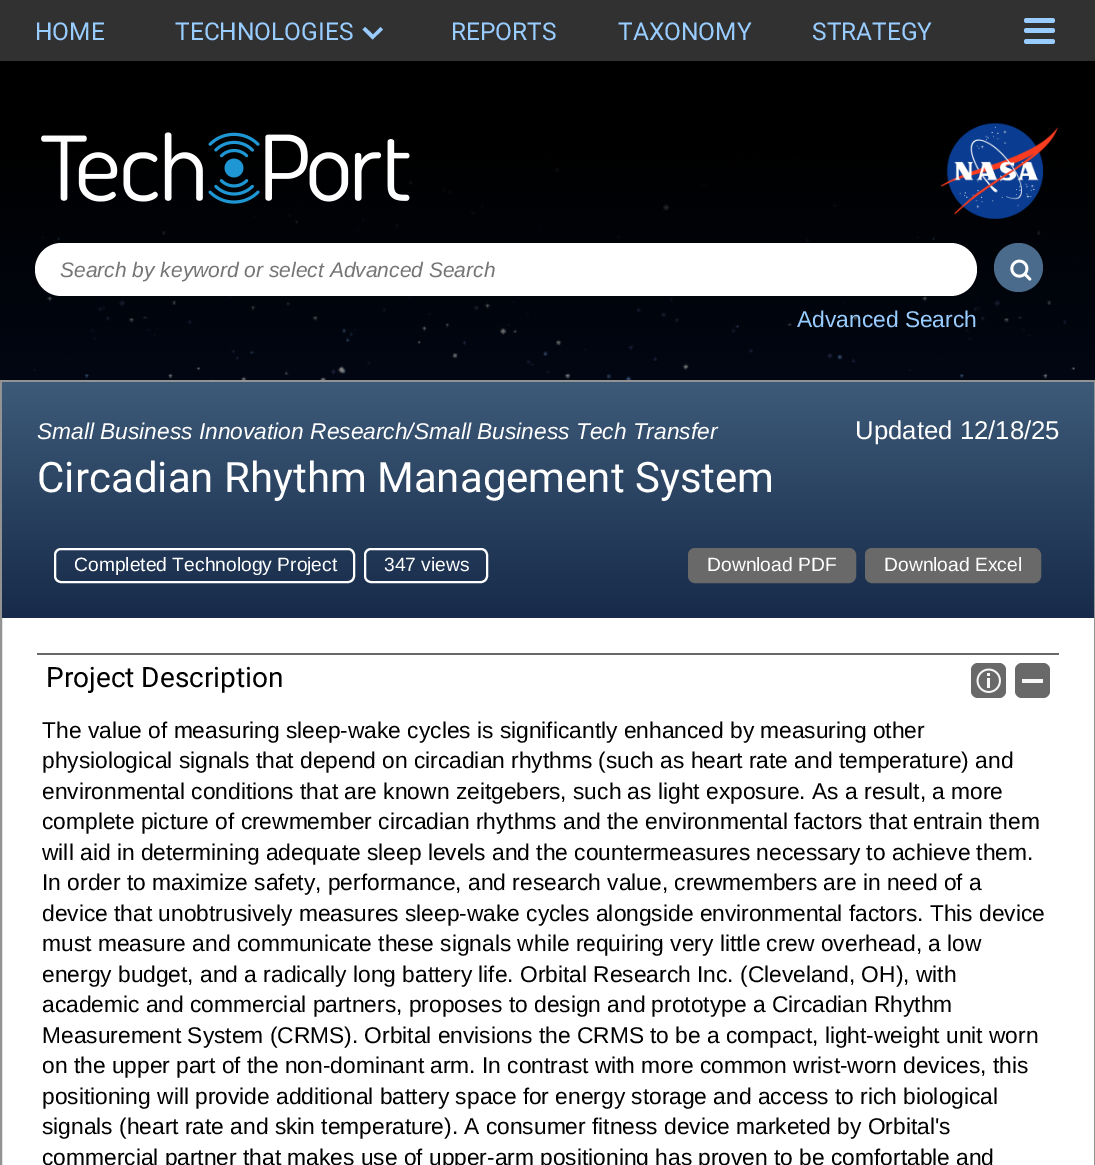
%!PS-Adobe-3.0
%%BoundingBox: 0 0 1095 1165
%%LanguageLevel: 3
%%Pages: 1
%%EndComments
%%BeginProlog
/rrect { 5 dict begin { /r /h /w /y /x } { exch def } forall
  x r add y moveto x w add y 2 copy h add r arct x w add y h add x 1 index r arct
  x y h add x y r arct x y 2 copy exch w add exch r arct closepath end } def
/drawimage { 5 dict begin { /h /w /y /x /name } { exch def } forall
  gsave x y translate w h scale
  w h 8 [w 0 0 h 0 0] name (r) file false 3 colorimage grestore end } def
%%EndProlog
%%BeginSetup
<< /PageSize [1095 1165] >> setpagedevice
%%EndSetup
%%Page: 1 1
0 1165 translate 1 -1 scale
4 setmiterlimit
0 setgray
0 0 1095 1165 rectfill
(images/1.raw) 0 156 1095 224 drawimage
0.192 setgray
0 0 1095 61 rectfill
0.6 0.8 1 setrgbcolor
newpath 372.5 39.5 moveto 362.5 29.5 lineto 365 27 lineto 373 34.5 lineto 380.5 27 lineto 383 29.5 lineto closepath eofill
1024 18 31 5 2.5 rrect fill
1024 28 31 5 2.5 rrect fill
1024 39 31 5 2.5 rrect fill
(images/2.raw) 41 132 369 72 drawimage
(images/3.raw) 940 123 118 96 drawimage
1 setgray
35 243 942 53 26.5 rrect fill
0.29 0.42 0.549 setrgbcolor
newpath 1018.5 267.5 24.5 0 360 arc closepath fill
(images/4.raw) 1010 259 22 22 drawimage
1 setgray
2 618 1092 547 rectfill
0.576 setgray
2 setlinewidth
1 381 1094 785 rectstroke
gsave newpath 2 382 moveto 1094 382 lineto 1094 618 lineto 2 618 lineto closepath clip newpath
<< /ShadingType 2 /ColorSpace /DeviceRGB /Coords [548 381 548 618] /Extend [true true] /Function << /FunctionType 2 /Domain [0 1] /C0 [0.239 0.357 0.475] /C1 [0.09 0.165 0.286] /N 1 >> >> shfill grestore
1 setgray
55 549 299 33 6 rrect stroke
365 549 122 33 6 rrect stroke
0.412 setgray
689 549 166 33 6 rrect gsave fill grestore
stroke
866 549 174 33 6 rrect gsave fill grestore
stroke
37 653 1022 2 rectfill
971 663 35 35 7 rrect fill
(images/5.raw) 976 668 25 25 drawimage
1015 663 35 35 7 rrect fill
0.973 setgray
1022 679 21 4 rectfill
/Roboto-Regular [24.5 0 0 -24.5 0 0] selectfont
0.6 0.8 1 setrgbcolor
35 40 moveto (HOME) show
175 40 moveto (TECHNOLOGIES) show
451 40 moveto (REPORTS) show
618 40 moveto (TAXONOMY) show
812 40 moveto (STRATEGY) show
/LiberationSans-Italic [21 0 0 -21 0 0] selectfont
0.459 setgray
60 277 moveto (Search by keyword or select Advanced Search) show
/LiberationSans-Regular [22.75 0 0 -22.75 0 0] selectfont
0.6 0.8 1 setrgbcolor
797 327 moveto (Advanced Search) show
/LiberationSans-Italic [22.75 0 0 -22.75 0 0] selectfont
1 setgray
37 439 moveto (Small Business Innovation Research/Small Business Tech Transfer) show
/LiberationSans-Regular [25.75 0 0 -25.75 0 0] selectfont
855 439 moveto (Updated 12/18/25) show
/Roboto-Regular [42 0 0 -42 0 0] selectfont
37 492 moveto (Circadian Rhythm Management System) show
/LiberationSans-Regular [19.25 0 0 -19.25 0 0] selectfont
74 571 moveto (Completed Technology Project) show
384 571 moveto (347 views) show
707 571 moveto (Download PDF) show
884 571 moveto (Download Excel) show
/Roboto-Regular [28 0 0 -28 0 0] selectfont
0 setgray
46 687 moveto (Project Description) show
/LiberationSans-Regular [22.75 0 0 -22.75 0 0] selectfont
42 738 moveto (The value of measuring sleep-wake cycles is significantly enhanced by measuring other) show
42 768 moveto (physiological signals that depend on circadian rhythms \(such as heart rate and temperature\) and) show
42 799 moveto (environmental conditions that are known zeitgebers, such as light exposure. As a result, a more) show
42 829 moveto (complete picture of crewmember circadian rhythms and the environmental factors that entrain them) show
42 860 moveto (will aid in determining adequate sleep levels and the countermeasures necessary to achieve them.) show
42 890 moveto (In order to maximize safety, performance, and research value, crewmembers are in need of a) show
42 921 moveto (device that unobtrusively measures sleep-wake cycles alongside environmental factors. This device) show
42 951 moveto (must measure and communicate these signals while requiring very little crew overhead, a low) show
42 982 moveto (energy budget, and a radically long battery life. Orbital Research Inc. \(Cleveland, OH\), with) show
42 1012 moveto (academic and commercial partners, proposes to design and prototype a Circadian Rhythm) show
42 1043 moveto (Measurement System \(CRMS\). Orbital envisions the CRMS to be a compact, light-weight unit worn) show
42 1073 moveto (on the upper part of the non-dominant arm. In contrast with more common wrist-worn devices, this) show
42 1104 moveto (positioning will provide additional battery space for energy storage and access to rich biological) show
42 1134 moveto (signals \(heart rate and skin temperature\). A consumer fitness device marketed by Orbital's) show
42 1165 moveto (commercial partner that makes use of upper-arm positioning has proven to be comfortable and) show
showpage
%%EOF
